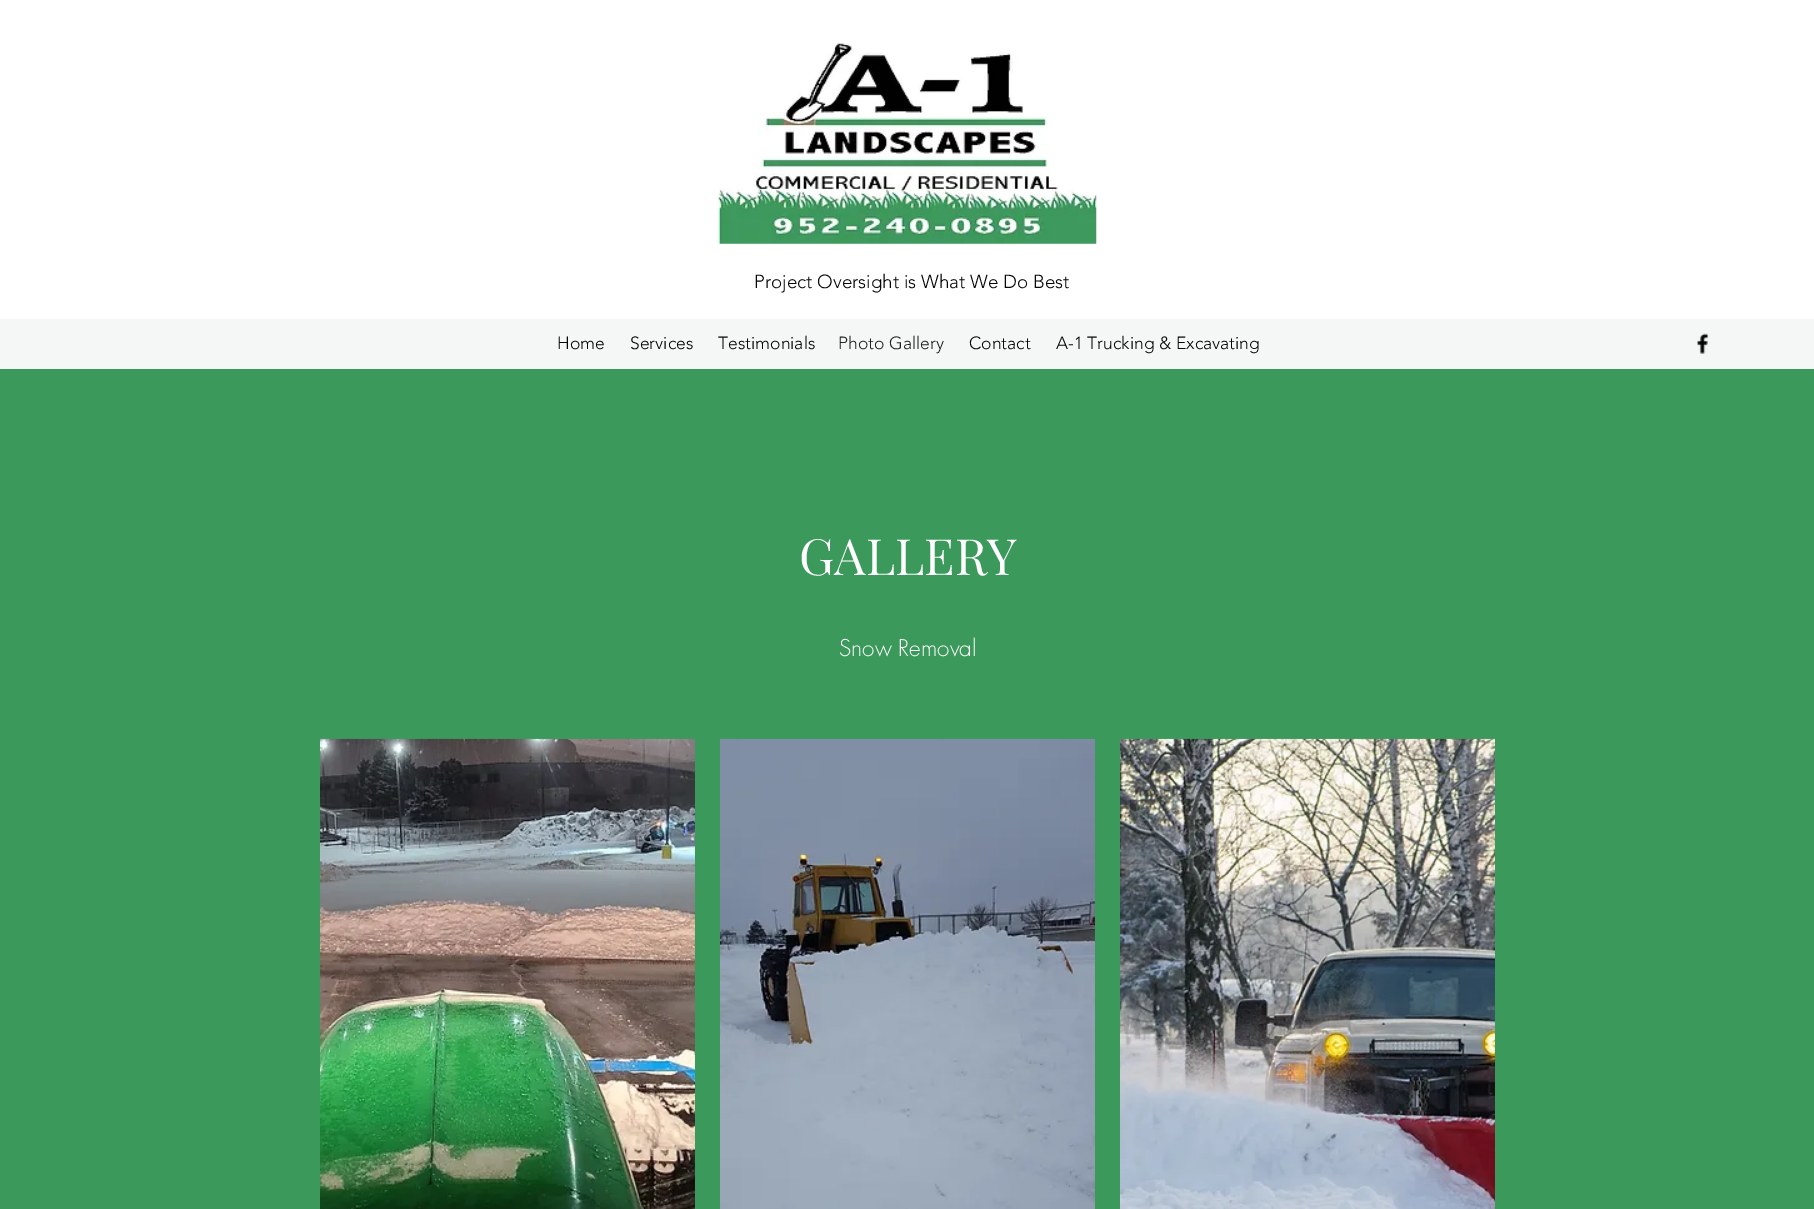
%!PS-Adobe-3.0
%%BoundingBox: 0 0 1814 1209
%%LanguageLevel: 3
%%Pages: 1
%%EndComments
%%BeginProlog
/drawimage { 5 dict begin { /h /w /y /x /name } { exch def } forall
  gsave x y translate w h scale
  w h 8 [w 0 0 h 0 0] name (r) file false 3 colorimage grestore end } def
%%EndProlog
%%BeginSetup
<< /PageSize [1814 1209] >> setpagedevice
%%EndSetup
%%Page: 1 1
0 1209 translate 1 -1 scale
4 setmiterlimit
1 setgray
0 0 1814 1209 rectfill
(images/1.raw) 718 43 379 201 drawimage
0.957 0.969 0.965 setrgbcolor
0 319 1814 50 rectfill
(images/2.raw) 1697 333 12 21 drawimage
0.235 0.6 0.361 setrgbcolor
0 369 1814 840 rectfill
(images/3.raw) 320 738 375 471 drawimage
(images/4.raw) 720 738 375 471 drawimage
(images/5.raw) 1120 738 375 471 drawimage
/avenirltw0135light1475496-Light [18.75 0 0 -18.75 0 0] selectfont
0.027 setgray
754 288 moveto (Project Oversight is What We Do Best) show
/avenirltw0135light1475496-Light [17.5 0 0 -17.5 0 0] selectfont
557 349 moveto (Home) show
630 349 moveto (Services) show
718 349 moveto (Testimonials) show
0.129 setgray
838 349 moveto (Photo Gallery) show
0.027 setgray
969 349 moveto (Contact) show
1056 349 moveto (A-1 Trucking & Excavating) show
/PlayfairDisplay-Regular [50 0 0 -50 0 0] selectfont
1 setgray
799 575 moveto (GALLERY) show
/futura-Light [22.5 0 0 -22.5 0 0] selectfont
839 656 moveto (Snow Removal) show
showpage
%%EOF
